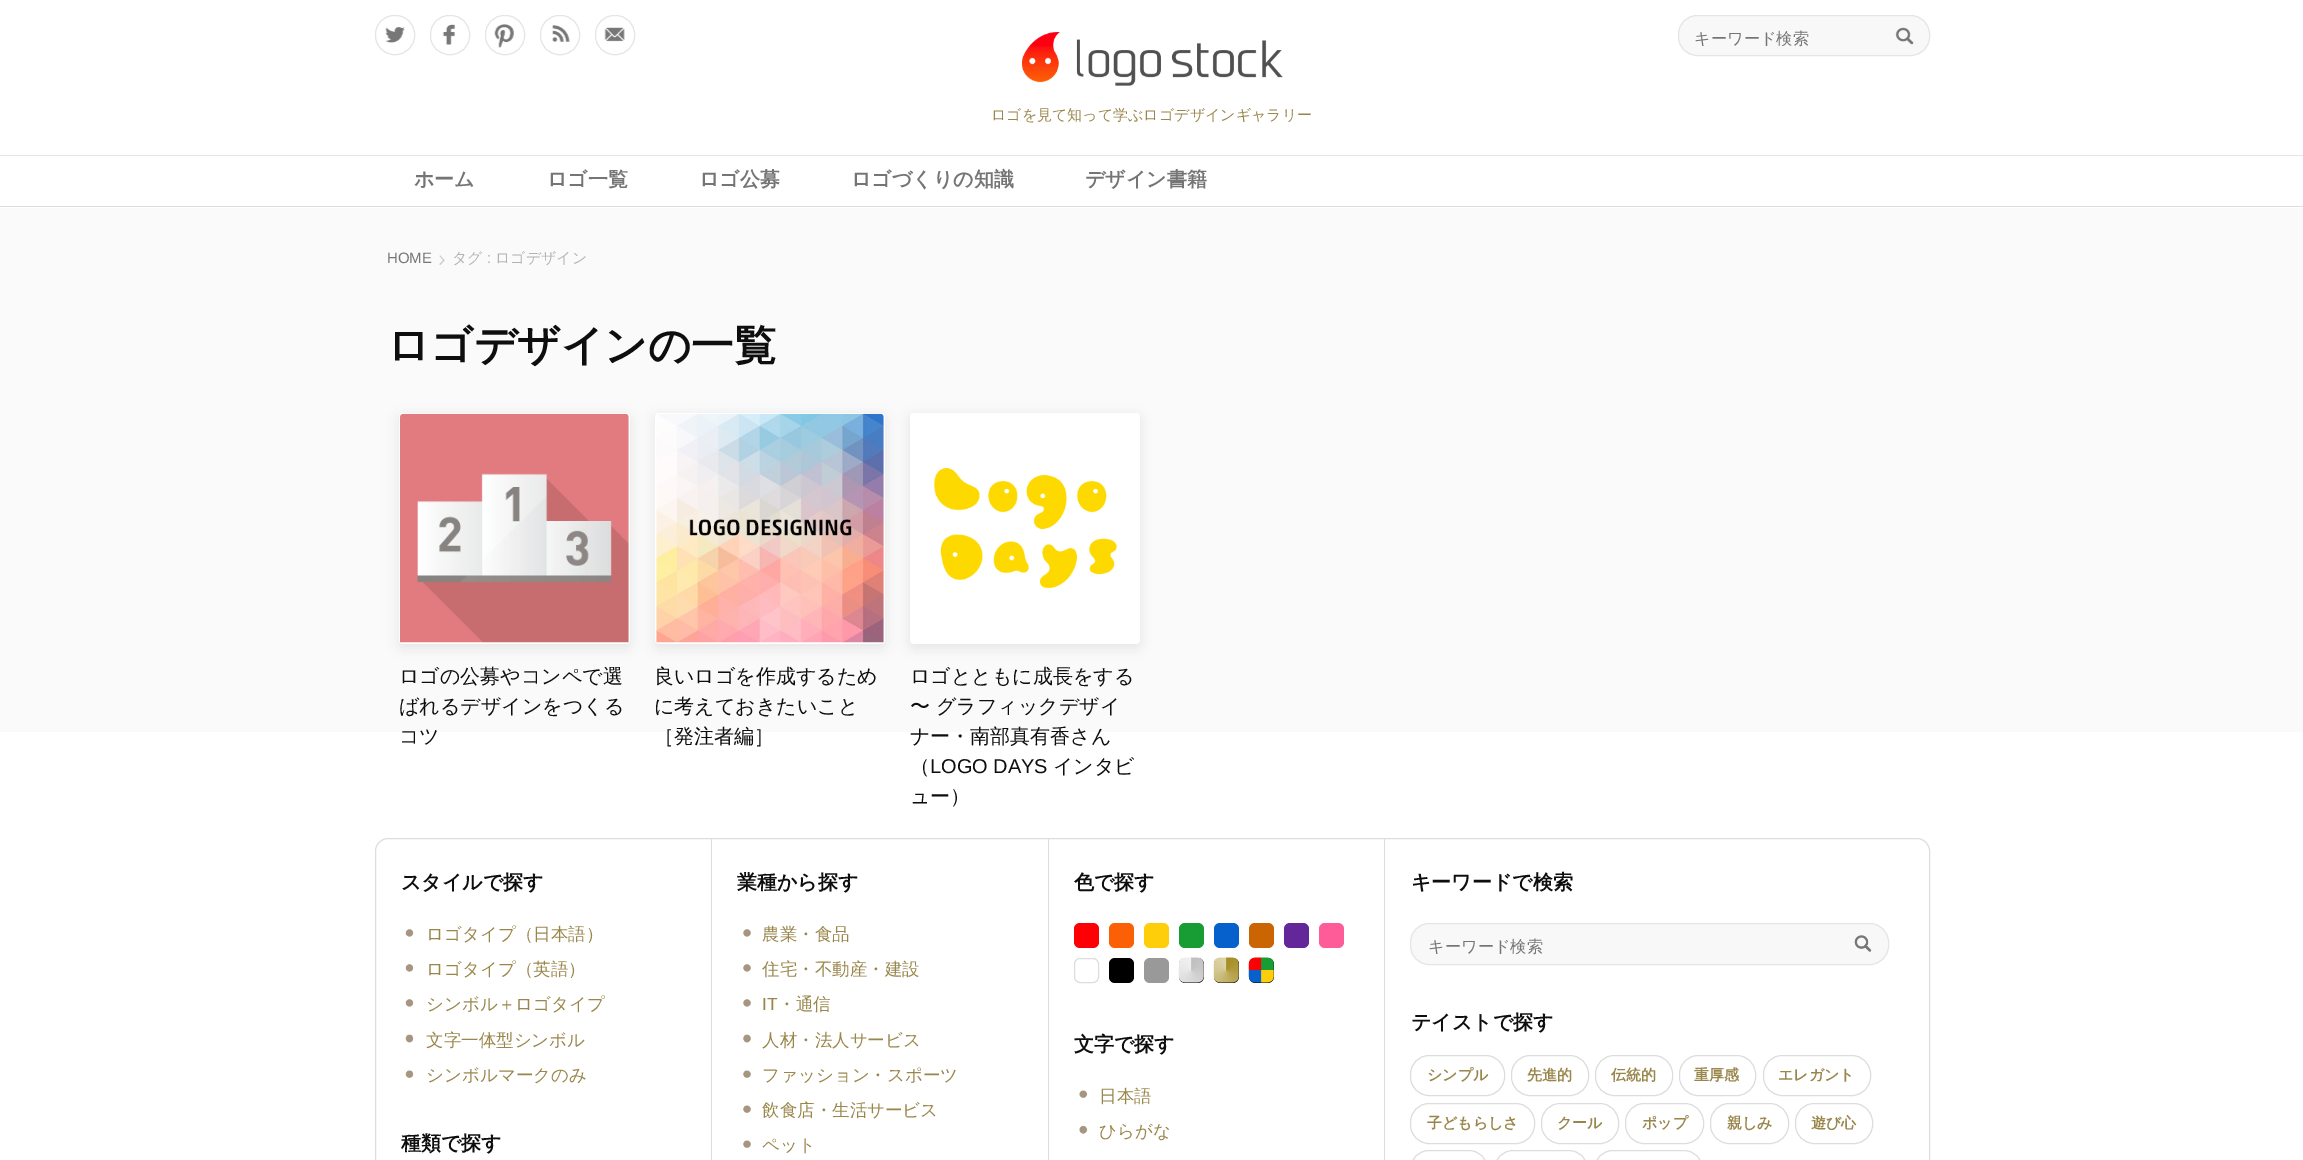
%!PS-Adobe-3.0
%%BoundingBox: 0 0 2303 1160
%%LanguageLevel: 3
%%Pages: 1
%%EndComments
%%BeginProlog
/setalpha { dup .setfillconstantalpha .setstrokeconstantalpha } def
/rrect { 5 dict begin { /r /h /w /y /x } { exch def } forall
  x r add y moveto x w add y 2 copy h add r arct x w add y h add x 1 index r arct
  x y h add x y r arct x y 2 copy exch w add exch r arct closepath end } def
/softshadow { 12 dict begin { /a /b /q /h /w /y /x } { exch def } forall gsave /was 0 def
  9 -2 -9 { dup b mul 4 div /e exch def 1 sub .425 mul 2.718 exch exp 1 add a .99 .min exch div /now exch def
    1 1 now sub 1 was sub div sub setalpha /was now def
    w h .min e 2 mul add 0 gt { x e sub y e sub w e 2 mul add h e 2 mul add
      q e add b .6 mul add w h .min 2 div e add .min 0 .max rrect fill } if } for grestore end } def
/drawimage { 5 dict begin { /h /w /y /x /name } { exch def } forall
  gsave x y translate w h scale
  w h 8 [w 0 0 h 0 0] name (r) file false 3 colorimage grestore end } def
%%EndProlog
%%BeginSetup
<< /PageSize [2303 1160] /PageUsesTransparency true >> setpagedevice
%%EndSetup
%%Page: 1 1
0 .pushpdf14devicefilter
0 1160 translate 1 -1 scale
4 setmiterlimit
1 setgray
0 0 2303 1160 rectfill
0.867 setgray
0 206 2303 1 rectfill
(images/1.raw) 385 27 20 16 drawimage
0.898 setgray
375.5 15.5 39 39 18.5 rrect stroke
(images/2.raw) 442 24 14 21 drawimage
430.5 15.5 39 39 18.5 rrect stroke
(images/3.raw) 494 24 20 24 drawimage
485.5 15.5 39 39 18.5 rrect stroke
(images/4.raw) 552 25 18 17 drawimage
540.5 15.5 39 39 18.5 rrect stroke
(images/5.raw) 604 27 21 15 drawimage
595.5 15.5 39 39 18.5 rrect stroke
(images/6.raw) 1022 32 261 54 drawimage
0.973 setgray
1678.5 15.5 251 40 18.5 rrect gsave fill grestore
0.898 setgray
stroke
(images/7.raw) 1895 27 19 18 drawimage
0 155 2303 1 rectfill
0.98 setgray
0 208 2303 524 rectfill
(images/8.raw) 439 255 6 10 drawimage
0.898 setgray
399 416 231 232 4 6 1 softshadow
1 setgray
399 413 231 231 4 rrect fill
(images/9.raw) 400 413 229 230 drawimage
0.898 setgray
655 416 230 232 4 6 1 softshadow
1 setgray
655 413 230 231 4 rrect fill
(images/10.raw) 656 413 228 230 drawimage
0.898 setgray
910 416 230 232 4 6 1 softshadow
1 setgray
910 413 230 231 4 rrect fill
(images/11.raw) 934 468 183 121 drawimage
0.867 setgray
375.5 838.5 1554 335 12.5 rrect stroke
711 839 1 321 rectfill
(images/12.raw) 405 929 9 8 drawimage
(images/12.raw) 405 964 9 8 drawimage
(images/12.raw) 405 999 9 8 drawimage
(images/13.raw) 405 1034 9 9 drawimage
(images/14.raw) 405 1070 9 8 drawimage
1048 839 1 321 rectfill
(images/15.raw) 743 929 8 8 drawimage
(images/15.raw) 743 964 8 8 drawimage
(images/15.raw) 743 999 8 8 drawimage
(images/16.raw) 743 1034 8 9 drawimage
(images/17.raw) 743 1070 8 8 drawimage
(images/17.raw) 743 1105 8 8 drawimage
(images/17.raw) 743 1140 8 8 drawimage
1384 839 1 321 rectfill
0.988 0 0.02 setrgbcolor
1074 923 25 25 6 rrect fill
0.988 0.376 0.027 setrgbcolor
1109 923 25 25 6 rrect fill
1 0.808 0.039 setrgbcolor
1144 923 25 25 6 rrect fill
0.09 0.616 0.2 setrgbcolor
1179 923 25 25 6 rrect fill
0.027 0.38 0.8 setrgbcolor
1214 923 25 25 6 rrect fill
0.796 0.396 0.016 setrgbcolor
1249 923 25 25 6 rrect fill
0.392 0.153 0.6 setrgbcolor
1284 923 25 25 6 rrect fill
0.992 0.361 0.6 setrgbcolor
1319 923 25 25 6 rrect fill
0.867 setgray
1074.5 958.5 24 24 5.5 rrect stroke
0 setgray
1109 958 25 25 6 rrect fill
0.6 setgray
1144 958 25 25 6 rrect fill
0 setgray
1179 958 25 25 6 rrect fill
(images/18.raw) 1178 957 26 26 drawimage
1214 958 25 25 6 rrect fill
(images/19.raw) 1213 957 26 26 drawimage
1249 958 25 25 6 rrect fill
(images/20.raw) 1248 957 26 26 drawimage
(images/21.raw) 1079 1090 9 8 drawimage
(images/22.raw) 1079 1125 9 9 drawimage
0.973 setgray
1410.5 923.5 478 41 18.5 rrect gsave fill grestore
0.898 setgray
stroke
(images/23.raw) 1854 935 18 17 drawimage
0.867 setgray
1410.5 1055.5 94 40 18.5 rrect stroke
1511.5 1055.5 77 40 18.5 rrect stroke
1595.5 1055.5 77 40 18.5 rrect stroke
1679.5 1055.5 76 40 18.5 rrect stroke
1763.5 1055.5 107 40 18.5 rrect stroke
1410.5 1103.5 124 40 18.5 rrect stroke
1541.5 1103.5 77 40 18.5 rrect stroke
1625.5 1103.5 78 40 18.5 rrect stroke
1710.5 1103.5 78 40 18.5 rrect stroke
1795.5 1103.5 77 40 18.5 rrect stroke
1410.5 1150.5 77 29 18.5 rrect stroke
1494.5 1150.5 93 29 18.5 rrect stroke
1594.5 1150.5 108 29 18.5 rrect stroke
/WenQuanYiZenHei-Medium [16.25 0 0 -16.25 0 0] selectfont
0.459 setgray
1694 44 moveto (キーワード検索) show
/WenQuanYiZenHei-Medium [15 0 0 -15 0 0] selectfont
0.6 0.525 0.294 setrgbcolor
991 120 moveto (ロゴを見て知って学ぶロゴデザインギャラリー) show
/WenQuanYiZenHei-Bold [20 0 0 -20 0 0] selectfont
0.459 setgray
414 186 moveto (ホーム) show
547 186 moveto (ロゴ一覧) show
699 186 moveto (ロゴ公募) show
851 186 moveto (ロゴづくりの知識) show
1085 186 moveto (デザイン書籍) show
/LiberationSans-Regular [15 0 0 -15 0 0] selectfont
387 263 moveto (HOME) show
/WenQuanYiZenHei-Medium [15 0 0 -15 0 0] selectfont
0.698 setgray
452 263 moveto (タグ) show
/LiberationSans-Regular [15 0 0 -15 0 0] selectfont
487 263 moveto (:) show
/WenQuanYiZenHei-Medium [15 0 0 -15 0 0] selectfont
495 263 moveto (ロゴデザイン) show
/WenQuanYiZenHei-Bold [42.5 0 0 -42.5 0 0] selectfont
0.055 0.055 0.059 setrgbcolor
387 360 moveto (ロゴデザインの一覧) show
/WenQuanYiZenHei-Medium [20 0 0 -20 0 0] selectfont
399 683 moveto (ロゴの公募やコンペで選) show
399 713 moveto (ばれるデザインをつくる) show
399 743 moveto (コツ) show
654 683 moveto (良いロゴを作成するため) show
654 713 moveto (に考えておきたいこと) show
654 743 moveto (［発注者編］) show
910 683 moveto (ロゴとともに成長をする) show
910 713 moveto (〜 グラフィックデザイ) show
910 743 moveto (ナー・南部真有香さん) show
910 773 moveto (（) show
/LiberationSans-Regular [20 0 0 -20 0 0] selectfont
930 773 moveto (LOGO DAYS) show
/WenQuanYiZenHei-Medium [20 0 0 -20 0 0] selectfont
1053 773 moveto (インタビ) show
910 803 moveto (ュー）) show
/WenQuanYiZenHei-Bold [20 0 0 -20 0 0] selectfont
401 889 moveto (スタイルで探す) show
/WenQuanYiZenHei-Medium [17.5 0 0 -17.5 0 0] selectfont
0.6 0.525 0.294 setrgbcolor
426 940 moveto (ロゴタイプ（日本語）) show
426 975 moveto (ロゴタイプ（英語）) show
426 1010 moveto (シンボル＋ロゴタイプ) show
426 1046 moveto (文字一体型シンボル) show
426 1081 moveto (シンボルマークのみ) show
/WenQuanYiZenHei-Bold [20 0 0 -20 0 0] selectfont
0.055 0.055 0.059 setrgbcolor
401 1150 moveto (種類で探す) show
737 889 moveto (業種から探す) show
/WenQuanYiZenHei-Medium [17.5 0 0 -17.5 0 0] selectfont
0.6 0.525 0.294 setrgbcolor
762 940 moveto (農業・食品) show
762 975 moveto (住宅・不動産・建設) show
/LiberationSans-Regular [17.5 0 0 -17.5 0 0] selectfont
762 1010 moveto (IT) show
/WenQuanYiZenHei-Medium [17.5 0 0 -17.5 0 0] selectfont
778 1010 moveto (・通信) show
762 1046 moveto (人材・法人サービス) show
762 1081 moveto (ファッション・スポーツ) show
762 1116 moveto (飲食店・生活サービス) show
762 1151 moveto (ペット) show
/WenQuanYiZenHei-Bold [20 0 0 -20 0 0] selectfont
0.055 0.055 0.059 setrgbcolor
1074 889 moveto (色で探す) show
1074 1051 moveto (文字で探す) show
/WenQuanYiZenHei-Medium [17.5 0 0 -17.5 0 0] selectfont
0.6 0.525 0.294 setrgbcolor
1099 1102 moveto (日本語) show
1099 1137 moveto (ひらがな) show
/WenQuanYiZenHei-Bold [20 0 0 -20 0 0] selectfont
0.055 0.055 0.059 setrgbcolor
1411 889 moveto (キーワードで検索) show
/WenQuanYiZenHei-Medium [16.25 0 0 -16.25 0 0] selectfont
0.459 setgray
1428 952 moveto (キーワード検索) show
/WenQuanYiZenHei-Bold [20 0 0 -20 0 0] selectfont
0.055 0.055 0.059 setrgbcolor
1411 1029 moveto (テイストで探す) show
/WenQuanYiZenHei-Bold [15 0 0 -15 0 0] selectfont
0.6 0.525 0.294 setrgbcolor
1427 1080 moveto (シンプル) show
1527 1080 moveto (先進的) show
1611 1080 moveto (伝統的) show
1694 1080 moveto (重厚感) show
1778 1080 moveto (エレガント) show
1427 1128 moveto (子どもらしさ) show
1557 1128 moveto (クール) show
1642 1128 moveto (ポップ) show
1727 1128 moveto (親しみ) show
1811 1128 moveto (遊び心) show
.poppdf14devicefilter showpage
%%EOF
